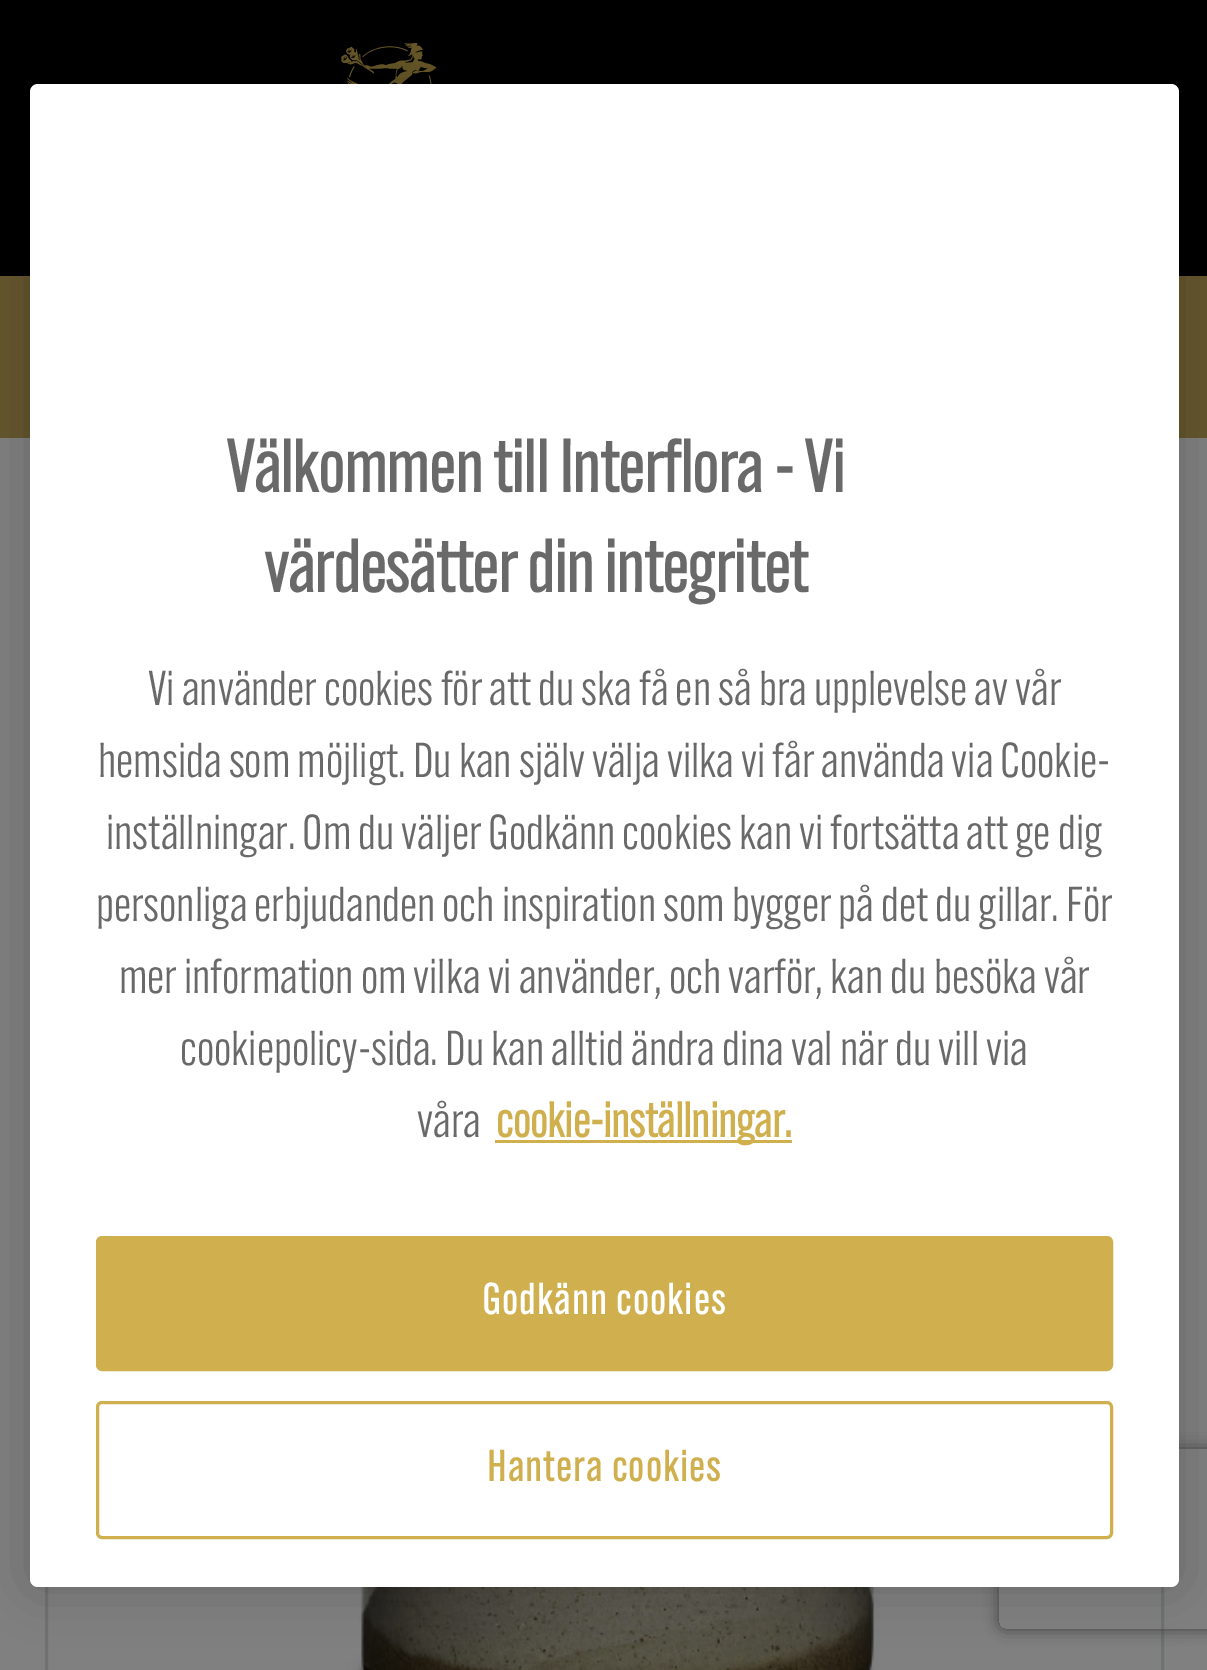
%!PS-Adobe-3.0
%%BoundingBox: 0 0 1207 1670
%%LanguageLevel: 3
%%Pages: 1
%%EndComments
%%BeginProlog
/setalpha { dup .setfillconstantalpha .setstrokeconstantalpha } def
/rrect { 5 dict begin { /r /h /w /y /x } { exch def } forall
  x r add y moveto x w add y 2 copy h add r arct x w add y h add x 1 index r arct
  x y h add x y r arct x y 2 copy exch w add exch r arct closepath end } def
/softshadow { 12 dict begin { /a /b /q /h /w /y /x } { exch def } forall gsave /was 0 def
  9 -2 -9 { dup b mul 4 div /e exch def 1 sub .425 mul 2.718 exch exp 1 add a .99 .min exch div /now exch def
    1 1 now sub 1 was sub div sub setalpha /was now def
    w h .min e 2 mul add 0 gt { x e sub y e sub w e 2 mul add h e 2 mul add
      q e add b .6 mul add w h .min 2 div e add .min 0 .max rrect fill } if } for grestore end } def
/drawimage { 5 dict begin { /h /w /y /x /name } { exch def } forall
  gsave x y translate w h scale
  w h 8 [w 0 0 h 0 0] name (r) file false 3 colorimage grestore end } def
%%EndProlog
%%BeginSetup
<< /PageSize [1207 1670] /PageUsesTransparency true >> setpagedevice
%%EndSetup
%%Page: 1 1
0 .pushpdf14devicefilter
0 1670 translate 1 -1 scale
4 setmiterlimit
0.502 setgray
0 0 1207 1670 rectfill
0 setgray
0 0 1207 276 rectfill
(images/1.raw) 236 43 201 41 drawimage
0.396 0.341 0.176 setrgbcolor
0 276 1207 162 rectfill
0.435 0.443 0.451 setrgbcolor
3 setlinewidth
46.5 547.5 1116 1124 rectstroke
(images/2.raw) 295 1587 658 83 drawimage
0 setgray
30 84 1149 1503 8 27 0.2 softshadow
gsave
newpath 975 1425 moveto 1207 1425 lineto 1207 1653 lineto 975 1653 lineto closepath 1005 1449 moveto 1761 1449 lineto 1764.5 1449 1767 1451.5 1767 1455 curveto 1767 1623 lineto 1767 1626.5 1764.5 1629 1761 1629 curveto 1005 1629 lineto 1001.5 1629 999 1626.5 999 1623 curveto 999 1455 lineto 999 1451.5 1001.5 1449 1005 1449 curveto closepath eoclip newpath
0.251 setgray
999 1449 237 180 6 7.5 1 softshadow
grestore
1 setgray
30 84 1149 1503 8 rrect fill
0.816 0.69 0.306 setrgbcolor
495 1140 297 3 rectfill
97.5 1237.5 1014 132 4.5 rrect gsave fill grestore
stroke
97.5 1402.5 1014 135 4.5 rrect stroke
/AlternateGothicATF-Bold [72 0 0 -72 0 0] selectfont
0.412 setgray
226 492 moveto (Välkommen till Interflora - Vi) show
264 592 moveto (värdesätter din integritet) show
/AlternateGothicATF-Regular [48 0 0 -48 0 0] selectfont
148 705 moveto (Vi använder cookies för att du ska få en så bra upplevelse av vår) show
98 777 moveto (hemsida som möjligt. Du kan själv välja vilka vi får använda via Cookie-) show
106 849 moveto (inställningar. Om du väljer Godkänn cookies kan vi fortsätta att ge dig) show
96 921 moveto (personliga erbjudanden och inspiration som bygger på det du gillar. För) show
119 993 moveto (mer information om vilka vi använder, och varför, kan du besöka vår) show
180 1065 moveto (cookiepolicy-sida. Du kan alltid ändra dina val när du vill via) show
417 1137 moveto (våra) show
/AlternateGothicATF-Bold [48 0 0 -48 0 0] selectfont
0.816 0.69 0.306 setrgbcolor
496 1137 moveto (cookie-inställningar.) show
/AlternateGothicATF-Bold [42 0 0 -42 0 0] selectfont
1 setgray
482 1314 moveto 2.1 0 (Godkänn cookies) ashow
0.816 0.69 0.306 setrgbcolor
487 1481 moveto 2.1 0 (Hantera cookies) ashow
.poppdf14devicefilter showpage
%%EOF
